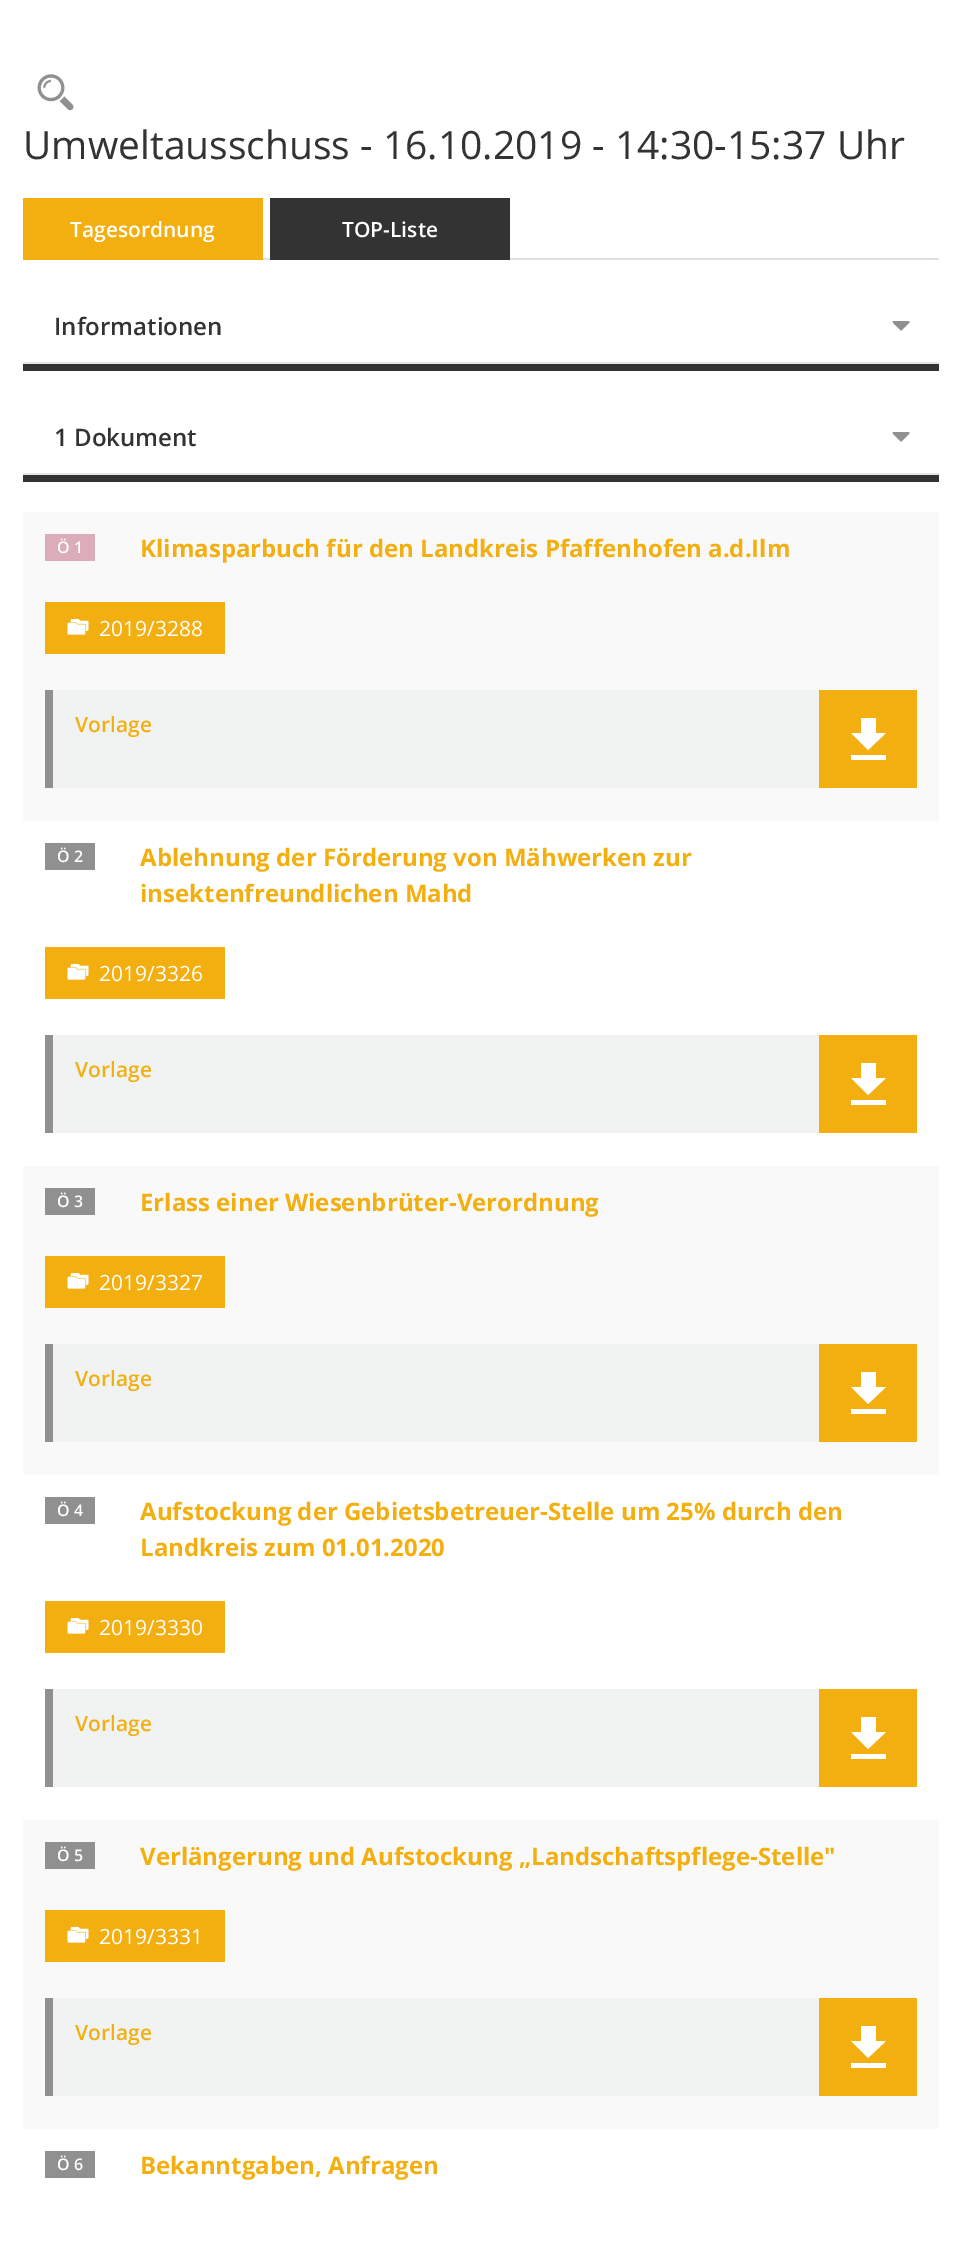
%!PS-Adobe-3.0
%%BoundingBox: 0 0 961 2247
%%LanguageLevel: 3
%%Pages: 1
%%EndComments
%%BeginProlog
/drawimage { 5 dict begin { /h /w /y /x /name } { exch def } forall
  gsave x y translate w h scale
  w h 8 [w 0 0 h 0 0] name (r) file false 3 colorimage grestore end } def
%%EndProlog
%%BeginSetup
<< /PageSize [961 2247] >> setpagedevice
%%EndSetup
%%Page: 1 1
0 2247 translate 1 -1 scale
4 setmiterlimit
1 setgray
0 0 961 2247 rectfill
(images/1.raw) 37 74 37 37 drawimage
0.871 0.886 0.902 setrgbcolor
263 258 676 2 rectfill
0.953 0.686 0.063 setrgbcolor
23 198 240 62 rectfill
0.2 setgray
270 198 240 62 rectfill
23 364 916 7 rectfill
0.902 setgray
23 362 916 2 rectfill
(images/2.raw) 892 321 18 10 drawimage
0.2 setgray
23 475 916 7 rectfill
0.902 setgray
23 473 916 2 rectfill
(images/2.raw) 892 432 18 10 drawimage
0.976 setgray
23 512 916 309 rectfill
0.859 0.678 0.725 setrgbcolor
45 534 50 27 rectfill
0.953 0.686 0.063 setrgbcolor
45 602 180 52 rectfill
(images/3.raw) 67 619 22 16 drawimage
0.941 0.953 0.949 setrgbcolor
53 690 766 98 rectfill
0.565 setgray
45 690 8 98 rectfill
0.953 0.686 0.063 setrgbcolor
819 690 98 98 rectfill
1 setgray
newpath 886 733 moveto 876 733 lineto 876 718 lineto 861 718 lineto 861 733 lineto 851 733 lineto 868 750 lineto closepath 851 755 moveto 851 760 lineto 886 760 lineto 886 755 lineto closepath fill
0.565 setgray
45 843 50 27 rectfill
0.953 0.686 0.063 setrgbcolor
45 947 180 52 rectfill
(images/3.raw) 67 964 22 16 drawimage
0.941 0.953 0.949 setrgbcolor
53 1035 766 98 rectfill
0.565 setgray
45 1035 8 98 rectfill
0.953 0.686 0.063 setrgbcolor
819 1035 98 98 rectfill
1 setgray
newpath 886 1078 moveto 876 1078 lineto 876 1063 lineto 861 1063 lineto 861 1078 lineto 851 1078 lineto 868 1095 lineto closepath 851 1100 moveto 851 1105 lineto 886 1105 lineto 886 1100 lineto closepath fill
0.976 setgray
23 1166 916 309 rectfill
0.565 setgray
45 1188 50 27 rectfill
0.953 0.686 0.063 setrgbcolor
45 1256 180 52 rectfill
(images/3.raw) 67 1273 22 16 drawimage
0.941 0.953 0.949 setrgbcolor
53 1344 766 98 rectfill
0.565 setgray
45 1344 8 98 rectfill
0.953 0.686 0.063 setrgbcolor
819 1344 98 98 rectfill
1 setgray
newpath 886 1387 moveto 876 1387 lineto 876 1372 lineto 861 1372 lineto 861 1387 lineto 851 1387 lineto 868 1404 lineto closepath 851 1409 moveto 851 1414 lineto 886 1414 lineto 886 1409 lineto closepath fill
0.565 setgray
45 1497 50 27 rectfill
0.953 0.686 0.063 setrgbcolor
45 1601 180 52 rectfill
(images/3.raw) 67 1618 22 16 drawimage
0.941 0.953 0.949 setrgbcolor
53 1689 766 98 rectfill
0.565 setgray
45 1689 8 98 rectfill
0.953 0.686 0.063 setrgbcolor
819 1689 98 98 rectfill
1 setgray
newpath 886 1732 moveto 876 1732 lineto 876 1717 lineto 861 1717 lineto 861 1732 lineto 851 1732 lineto 868 1749 lineto closepath 851 1754 moveto 851 1759 lineto 886 1759 lineto 886 1754 lineto closepath fill
0.976 setgray
23 1820 916 309 rectfill
0.565 setgray
45 1842 50 27 rectfill
0.953 0.686 0.063 setrgbcolor
45 1910 180 52 rectfill
(images/3.raw) 67 1927 22 16 drawimage
0.941 0.953 0.949 setrgbcolor
53 1998 766 98 rectfill
0.565 setgray
45 1998 8 98 rectfill
0.953 0.686 0.063 setrgbcolor
819 1998 98 98 rectfill
1 setgray
newpath 886 2041 moveto 876 2041 lineto 876 2026 lineto 861 2026 lineto 861 2041 lineto 851 2041 lineto 868 2058 lineto closepath 851 2063 moveto 851 2068 lineto 886 2068 lineto 886 2063 lineto closepath fill
0.565 setgray
45 2151 50 27 rectfill
/OpenSans-Regular [39 0 0 -39 0 0] selectfont
0.2 setgray
23 159 moveto (Umweltausschuss - 16.10.2019 - 14:30-15:37 Uhr) show
/OpenSans-SemiBold [21 0 0 -21 0 0] selectfont
1 setgray
70 237 moveto (Tagesordnung) show
342 237 moveto (TOP-Liste) show
/OpenSans-SemiBold [24 0 0 -24 0 0] selectfont
0.2 setgray
54 335 moveto (Informationen) show
54 446 moveto (1 Dokument) show
/OpenSans-SemiBold [16 0 0 -16 0 0] selectfont
1 setgray
57 553 moveto (Ö 1) show
/OpenSans-Bold [24 0 0 -24 0 0] selectfont
0.953 0.686 0.063 setrgbcolor
140 557 moveto (Klimasparbuch für den Landkreis Pfaffenhofen a.d.Ilm) show
/OpenSans-Regular [21 0 0 -21 0 0] selectfont
1 setgray
99 636 moveto (2019/3288) show
/OpenSans-SemiBold [21 0 0 -21 0 0] selectfont
0.953 0.686 0.063 setrgbcolor
75 732 moveto (Vorlage) show
/OpenSans-SemiBold [16 0 0 -16 0 0] selectfont
1 setgray
57 862 moveto (Ö 2) show
/OpenSans-Bold [24 0 0 -24 0 0] selectfont
0.953 0.686 0.063 setrgbcolor
140 866 moveto (Ablehnung der Förderung von Mähwerken zur) show
140 902 moveto (insektenfreundlichen Mahd) show
/OpenSans-Regular [21 0 0 -21 0 0] selectfont
1 setgray
99 981 moveto (2019/3326) show
/OpenSans-SemiBold [21 0 0 -21 0 0] selectfont
0.953 0.686 0.063 setrgbcolor
75 1077 moveto (Vorlage) show
/OpenSans-SemiBold [16 0 0 -16 0 0] selectfont
1 setgray
57 1207 moveto (Ö 3) show
/OpenSans-Bold [24 0 0 -24 0 0] selectfont
0.953 0.686 0.063 setrgbcolor
140 1211 moveto (Erlass einer Wiesenbrüter-Verordnung) show
/OpenSans-Regular [21 0 0 -21 0 0] selectfont
1 setgray
99 1290 moveto (2019/3327) show
/OpenSans-SemiBold [21 0 0 -21 0 0] selectfont
0.953 0.686 0.063 setrgbcolor
75 1386 moveto (Vorlage) show
/OpenSans-SemiBold [16 0 0 -16 0 0] selectfont
1 setgray
57 1516 moveto (Ö 4) show
/OpenSans-Bold [24 0 0 -24 0 0] selectfont
0.953 0.686 0.063 setrgbcolor
140 1520 moveto (Aufstockung der Gebietsbetreuer-Stelle um 25% durch den) show
140 1556 moveto (Landkreis zum 01.01.2020) show
/OpenSans-Regular [21 0 0 -21 0 0] selectfont
1 setgray
99 1635 moveto (2019/3330) show
/OpenSans-SemiBold [21 0 0 -21 0 0] selectfont
0.953 0.686 0.063 setrgbcolor
75 1731 moveto (Vorlage) show
/OpenSans-SemiBold [16 0 0 -16 0 0] selectfont
1 setgray
57 1861 moveto (Ö 5) show
/OpenSans-Bold [24 0 0 -24 0 0] selectfont
0.953 0.686 0.063 setrgbcolor
140 1865 moveto (Verlängerung und Aufstockung „Landschaftspflege-Stelle") show
/OpenSans-Regular [21 0 0 -21 0 0] selectfont
1 setgray
99 1944 moveto (2019/3331) show
/OpenSans-SemiBold [21 0 0 -21 0 0] selectfont
0.953 0.686 0.063 setrgbcolor
75 2040 moveto (Vorlage) show
/OpenSans-SemiBold [16 0 0 -16 0 0] selectfont
1 setgray
57 2170 moveto (Ö 6) show
/OpenSans-Bold [24 0 0 -24 0 0] selectfont
0.953 0.686 0.063 setrgbcolor
140 2174 moveto (Bekanntgaben, Anfragen) show
showpage
%%EOF
